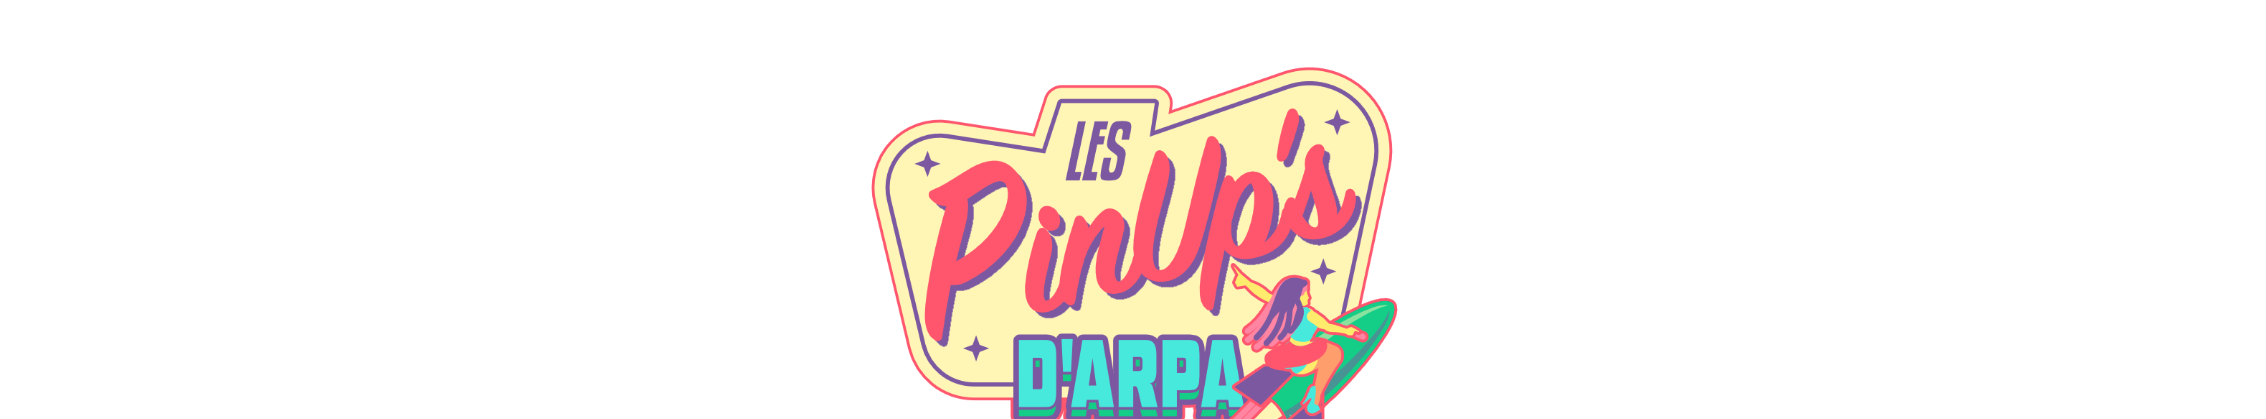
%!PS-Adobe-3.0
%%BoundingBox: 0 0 2266 419
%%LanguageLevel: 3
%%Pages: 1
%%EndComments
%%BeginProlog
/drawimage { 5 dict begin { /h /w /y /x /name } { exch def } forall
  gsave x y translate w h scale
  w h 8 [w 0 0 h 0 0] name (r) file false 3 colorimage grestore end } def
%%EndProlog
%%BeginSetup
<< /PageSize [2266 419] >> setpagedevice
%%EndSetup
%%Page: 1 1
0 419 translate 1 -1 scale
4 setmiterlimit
1 setgray
0 0 2266 419 rectfill
(images/1.raw) 871 67 527 352 drawimage
showpage
%%EOF
